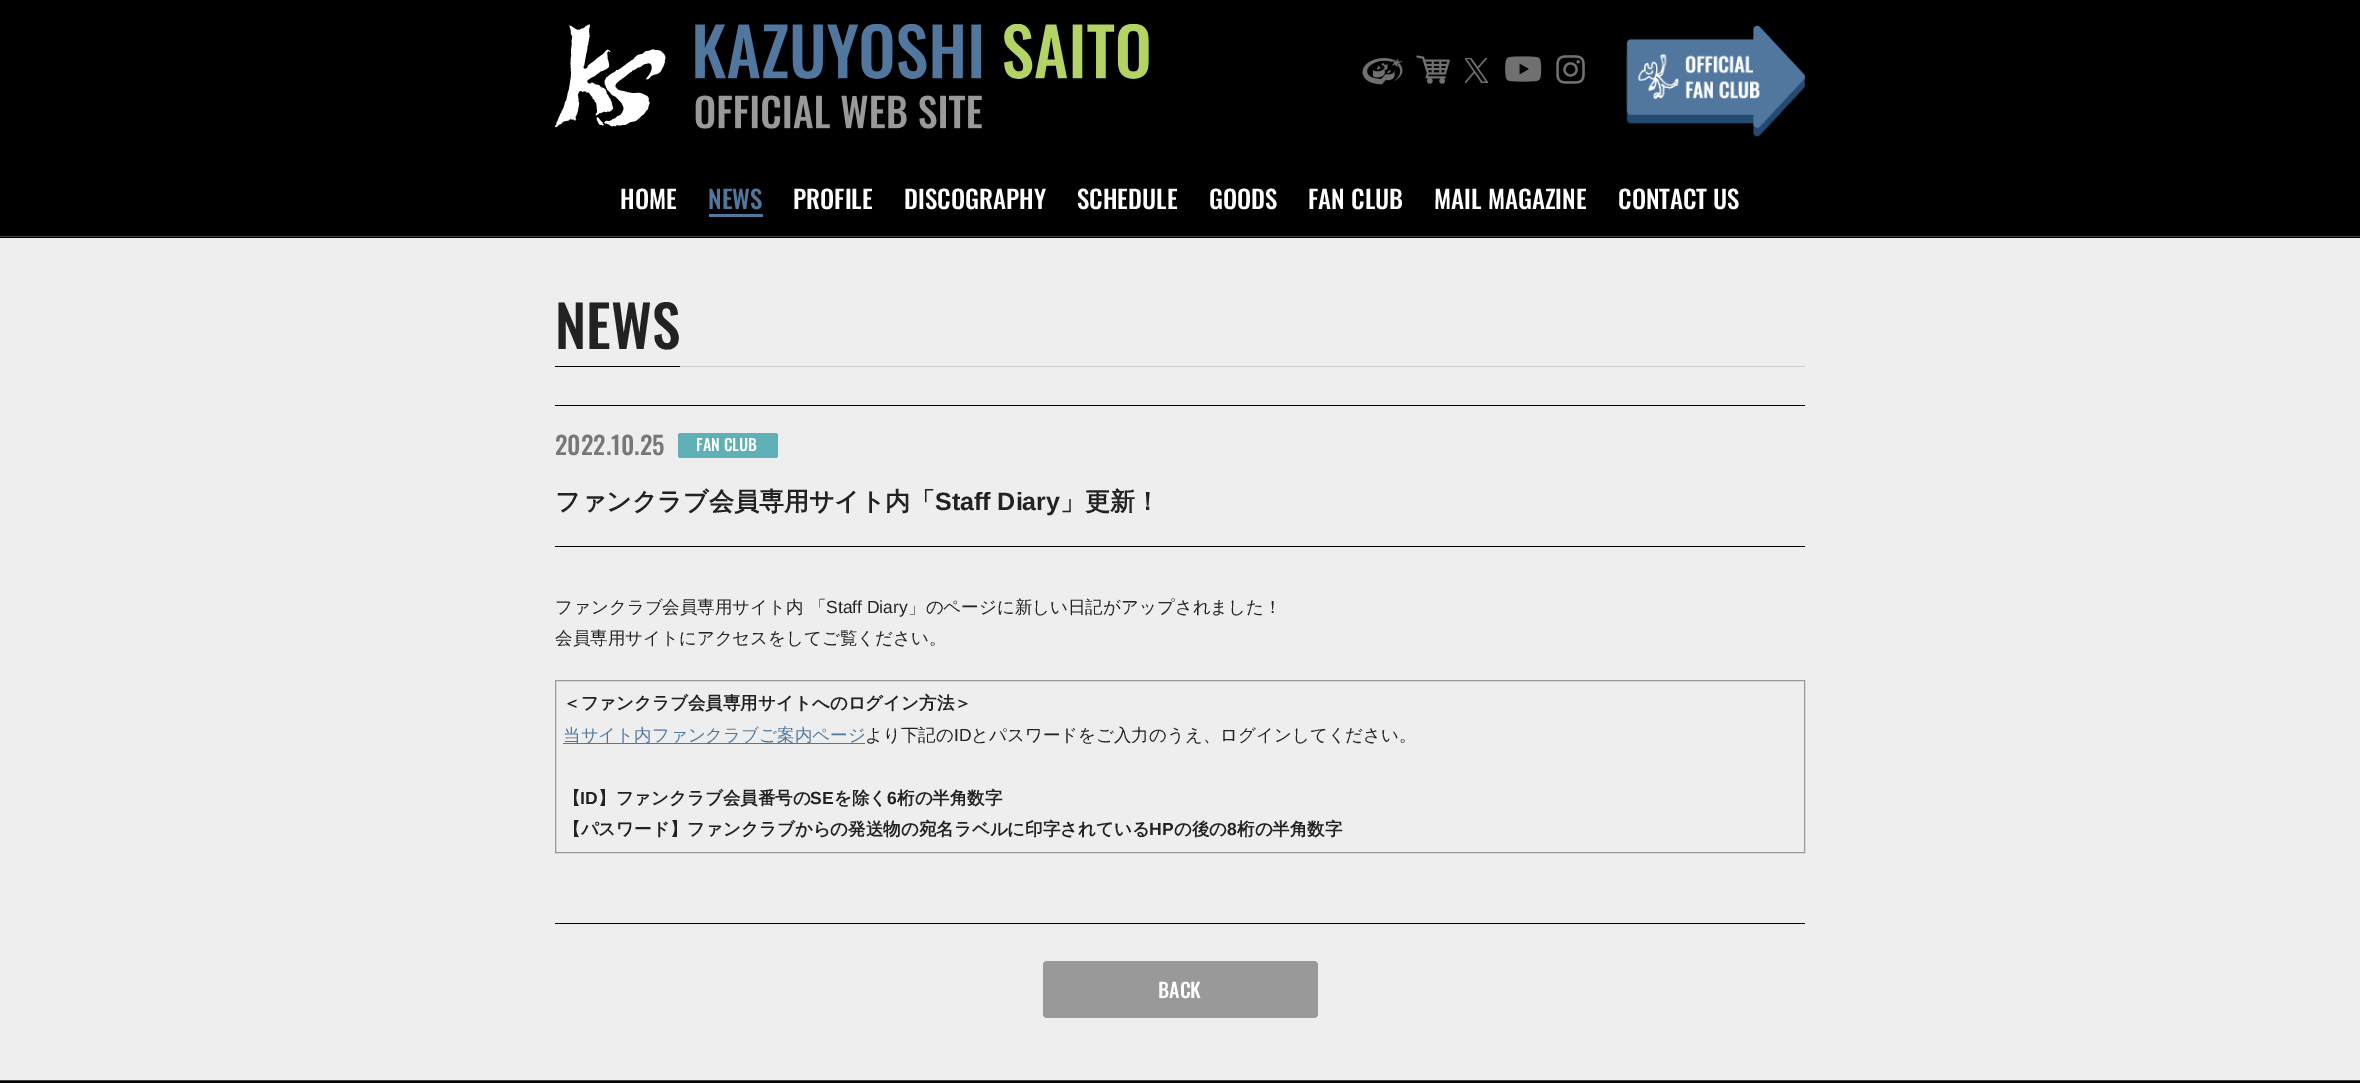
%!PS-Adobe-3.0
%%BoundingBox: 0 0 2360 1083
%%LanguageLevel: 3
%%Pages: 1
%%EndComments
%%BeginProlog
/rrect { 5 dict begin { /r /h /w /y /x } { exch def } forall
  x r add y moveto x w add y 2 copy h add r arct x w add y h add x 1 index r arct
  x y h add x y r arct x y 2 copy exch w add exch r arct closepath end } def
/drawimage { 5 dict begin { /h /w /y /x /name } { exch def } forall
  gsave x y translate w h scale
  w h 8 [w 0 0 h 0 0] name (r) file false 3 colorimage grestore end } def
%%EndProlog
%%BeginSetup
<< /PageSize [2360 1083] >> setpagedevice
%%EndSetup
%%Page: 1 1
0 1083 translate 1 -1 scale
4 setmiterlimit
0 setgray
0 0 2360 1083 rectfill
0.267 setgray
0 236 2360 1 rectfill
(images/1.raw) 555 24 594 105 drawimage
(images/2.raw) 1362 58 41 27 drawimage
(images/3.raw) 1416 55 34 29 drawimage
(images/4.raw) 1465 58 23 25 drawimage
(images/5.raw) 1505 56 37 26 drawimage
(images/6.raw) 1556 55 29 29 drawimage
(images/7.raw) 1626 25 179 112 drawimage
0.322 0.467 0.624 setrgbcolor
709 214 54 3 rectfill
0.933 setgray
0 238 2360 842 rectfill
0 setgray
555 366 125 1 rectfill
0.8 setgray
680 366 1125 1 rectfill
0 setgray
555 405 1250 1 rectfill
555 546 1250 1 rectfill
0.376 0.69 0.718 setrgbcolor
678 433 100 25 2.5 rrect fill
0 setgray
555 923 1250 1 rectfill
0.6 setgray
555.5 680.5 1249 172 rectstroke
0.322 0.467 0.624 setrgbcolor
563 743 302 1 rectfill
0.6 setgray
1043 961 275 57 4 rrect fill
0.267 setgray
0 1080 2360 1 rectfill
/Oswald-Medium [25 0 0 -25 0 0] selectfont
1 setgray
620 209 moveto (HOME) show
0.322 0.467 0.624 setrgbcolor
708 209 moveto (NEWS) show
1 setgray
793 209 moveto (PROFILE) show
904 209 moveto (DISCOGRAPHY) show
1077 209 moveto (SCHEDULE) show
1209 209 moveto (GOODS) show
1308 209 moveto (FAN CLUB) show
1434 209 moveto (MAIL MAGAZINE) show
1618 209 moveto (CONTACT US) show
/Oswald-Medium [57.5 0 0 -57.5 0 0] selectfont
0.133 setgray
555 349 moveto (NEWS) show
/Oswald-Medium [25 0 0 -25 0 0] selectfont
0.467 setgray
555 455 moveto (2022.10.25) show
/Oswald-Medium [16 0 0 -16 0 0] selectfont
1 setgray
696 451 moveto (FAN CLUB) show
/WenQuanYiZenHei-Bold [25 0 0 -25 0 0] selectfont
0.133 setgray
555 510 moveto (ファンクラブ会員専用サイト内「) show
/LiberationSans-Bold [25 0 0 -25 0 0] selectfont
935 510 moveto (Staff Diary) show
/WenQuanYiZenHei-Bold [25 0 0 -25 0 0] selectfont
1060 510 moveto (」更新！) show
/WenQuanYiZenHei-Medium [17.5 0 0 -17.5 0 0] selectfont
555 613 moveto (ファンクラブ会員専用サイト内) show
809 613 moveto (「) show
/LiberationSans-Regular [17.5 0 0 -17.5 0 0] selectfont
826 613 moveto (Staff Diary) show
/WenQuanYiZenHei-Medium [17.5 0 0 -17.5 0 0] selectfont
908 613 moveto (」のページに新しい日記がアップされました！) show
555 644 moveto (会員専用サイトにアクセスをしてご覧ください。) show
/WenQuanYiZenHei-Bold [17.5 0 0 -17.5 0 0] selectfont
563 709 moveto (＜ファンクラブ会員専用サイトへのログイン方法＞) show
/WenQuanYiZenHei-Medium [17.5 0 0 -17.5 0 0] selectfont
0.322 0.467 0.624 setrgbcolor
563 741 moveto (当サイト内ファンクラブご案内ページ) show
0.133 setgray
865 741 moveto (より下記の) show
/LiberationSans-Regular [17.5 0 0 -17.5 0 0] selectfont
954 741 moveto (ID) show
/WenQuanYiZenHei-Medium [17.5 0 0 -17.5 0 0] selectfont
971 741 moveto (とパスワードをご入力のうえ、ログインしてください。) show
/WenQuanYiZenHei-Bold [17.5 0 0 -17.5 0 0] selectfont
563 804 moveto (【) show
/LiberationSans-Bold [17.5 0 0 -17.5 0 0] selectfont
580 804 moveto (ID) show
/WenQuanYiZenHei-Bold [17.5 0 0 -17.5 0 0] selectfont
598 804 moveto (】ファンクラブ会員番号の) show
/LiberationSans-Bold [17.5 0 0 -17.5 0 0] selectfont
810 804 moveto (SE) show
/WenQuanYiZenHei-Bold [17.5 0 0 -17.5 0 0] selectfont
834 804 moveto (を除く) show
/LiberationSans-Bold [17.5 0 0 -17.5 0 0] selectfont
887 804 moveto (6) show
/WenQuanYiZenHei-Bold [17.5 0 0 -17.5 0 0] selectfont
897 804 moveto (桁の半角数字) show
563 835 moveto (【パスワード】ファンクラブからの発送物の宛名ラベルに印字されている) show
/LiberationSans-Bold [17.5 0 0 -17.5 0 0] selectfont
1149 835 moveto (HP) show
/WenQuanYiZenHei-Bold [17.5 0 0 -17.5 0 0] selectfont
1174 835 moveto (の後の) show
/LiberationSans-Bold [17.5 0 0 -17.5 0 0] selectfont
1227 835 moveto (8) show
/WenQuanYiZenHei-Bold [17.5 0 0 -17.5 0 0] selectfont
1237 835 moveto (桁の半角数字) show
/Oswald-Medium [20 0 0 -20 0 0] selectfont
1 setgray
1158 998 moveto (BACK) show
showpage
%%EOF
